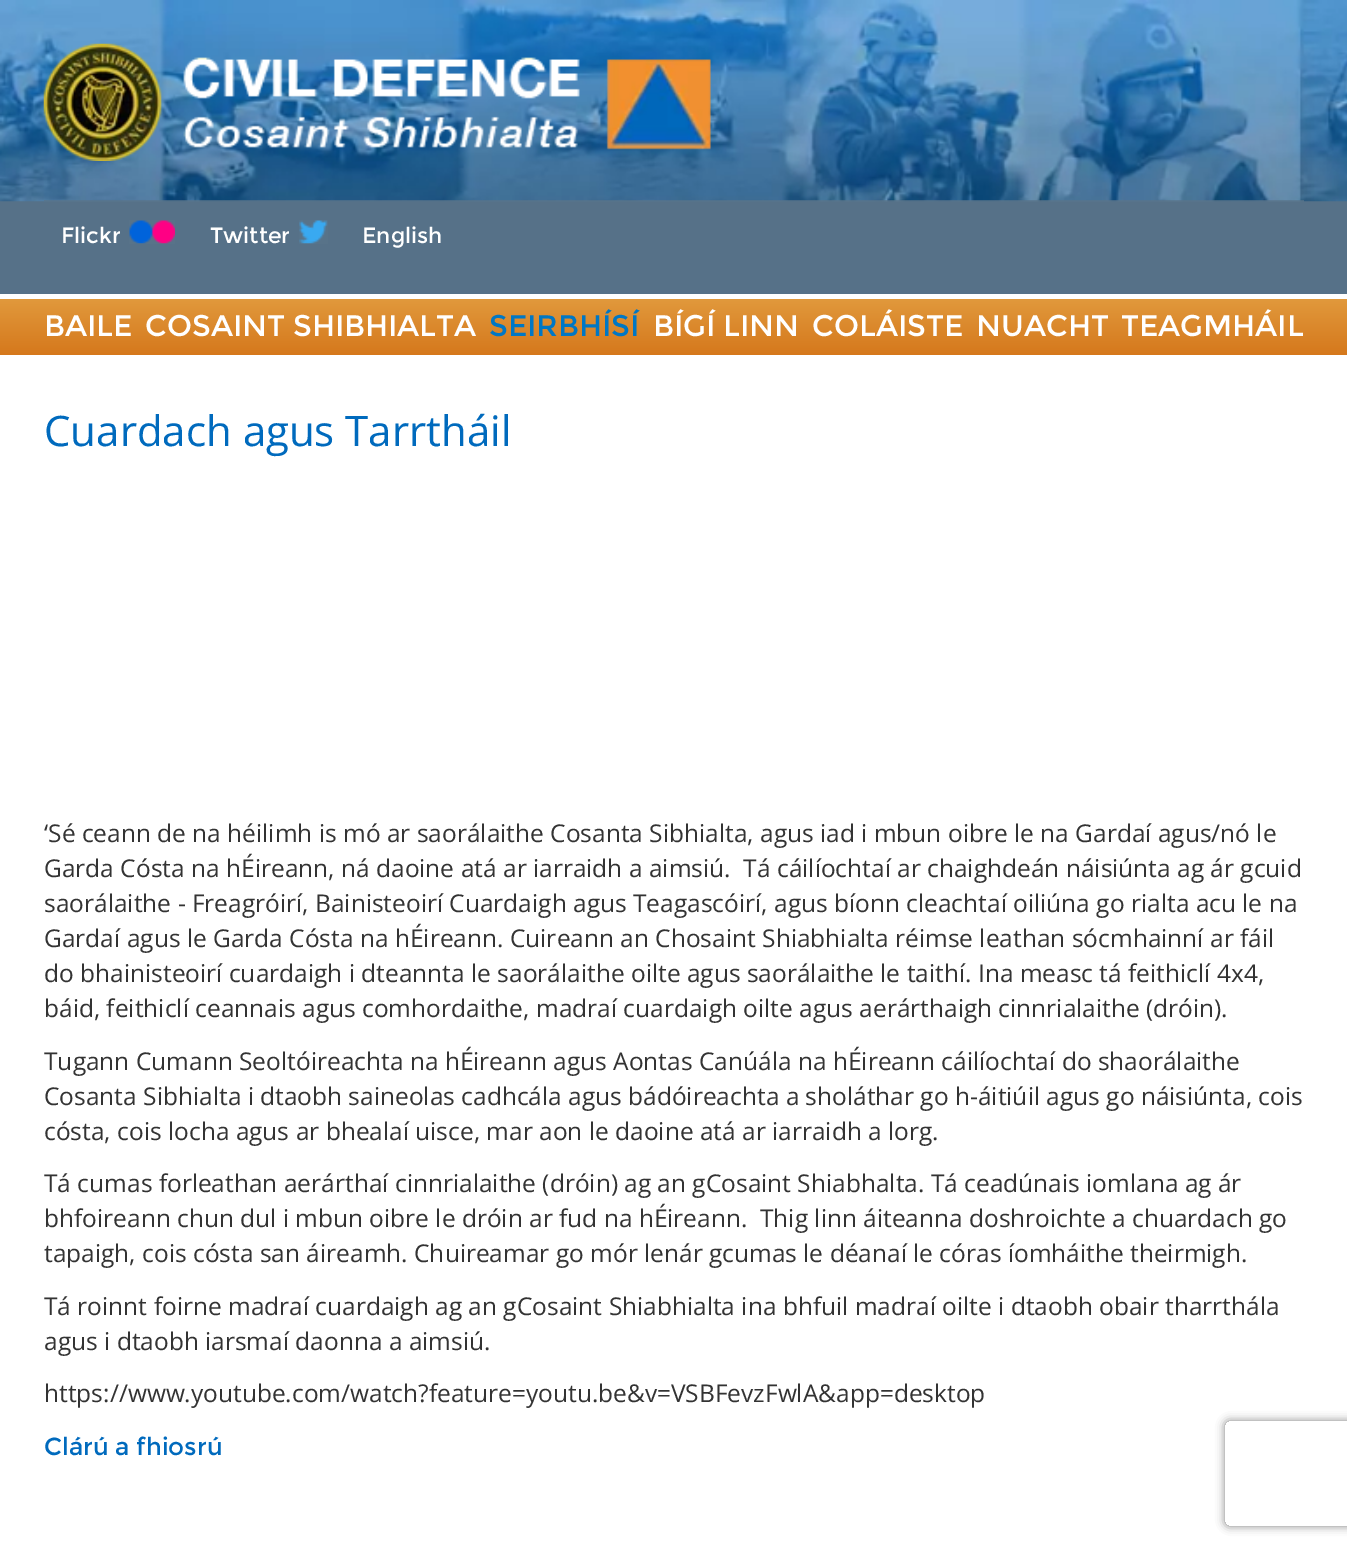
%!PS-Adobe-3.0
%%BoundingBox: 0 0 1347 1549
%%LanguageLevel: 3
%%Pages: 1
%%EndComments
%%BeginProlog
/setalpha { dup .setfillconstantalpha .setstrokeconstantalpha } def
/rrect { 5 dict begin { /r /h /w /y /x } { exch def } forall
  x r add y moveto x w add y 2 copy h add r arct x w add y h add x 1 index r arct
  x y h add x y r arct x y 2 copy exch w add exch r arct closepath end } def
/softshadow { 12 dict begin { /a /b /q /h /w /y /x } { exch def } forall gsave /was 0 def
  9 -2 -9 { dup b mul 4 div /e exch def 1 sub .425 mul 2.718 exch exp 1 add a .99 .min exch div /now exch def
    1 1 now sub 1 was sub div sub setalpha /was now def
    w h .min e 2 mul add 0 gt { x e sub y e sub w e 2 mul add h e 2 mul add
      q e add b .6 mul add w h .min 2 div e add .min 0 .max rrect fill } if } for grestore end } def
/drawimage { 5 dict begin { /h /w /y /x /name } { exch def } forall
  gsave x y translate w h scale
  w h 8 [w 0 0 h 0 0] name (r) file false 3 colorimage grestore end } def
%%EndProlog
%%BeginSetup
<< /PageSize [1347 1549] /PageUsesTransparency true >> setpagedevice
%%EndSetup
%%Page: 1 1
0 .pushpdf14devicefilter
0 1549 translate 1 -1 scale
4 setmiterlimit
1 setgray
0 0 1347 1549 rectfill
0.337 0.443 0.533 setrgbcolor
0 201 1347 93 rectfill
(images/1.raw) 0 0 1347 202 drawimage
(images/2.raw) 43 43 668 118 drawimage
0.7 setalpha
0.349 0.455 0.541 setrgbcolor
44 200 1260 2 rectfill
1 setalpha
(images/3.raw) 129 220 46 24 drawimage
(images/4.raw) 299 220 29 24 drawimage
gsave newpath 0 299 moveto 1347 299 lineto 1347 355 lineto 0 355 lineto closepath clip newpath
<< /ShadingType 2 /ColorSpace /DeviceRGB /Coords [674 299 674 355] /Extend [true true] /Function << /FunctionType 2 /Domain [0 1] /C0 [0.882 0.6 0.235] /C1 [0.835 0.471 0.11] /N 1 >> >> shfill grestore
gsave
newpath 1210 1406 moveto 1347 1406 lineto 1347 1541 lineto 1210 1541 lineto closepath 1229 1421 moveto 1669 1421 lineto 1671 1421 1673 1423 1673 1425 curveto 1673 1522 lineto 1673 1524 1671 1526 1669 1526 curveto 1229 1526 lineto 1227 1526 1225 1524 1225 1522 curveto 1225 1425 lineto 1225 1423 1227 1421 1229 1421 curveto closepath eoclip newpath
0.502 setgray
1225 1421 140 105 4 4.5 1 softshadow
grestore
/Montserrat-Regular [22 0 0 -22 0 0] selectfont
1 setgray
61 243 moveto (Flickr) show
210 243 moveto (Twitter) show
362 243 moveto (English) show
/Montserrat-Regular [29.75 0 0 -29.75 0 0] selectfont
44 336 moveto (BAILE) show
145 336 moveto (COSAINT SHIBHIALTA) show
0 0.467 0.769 setrgbcolor
489 336 moveto (SEIRBHÍSÍ) show
1 setgray
653 336 moveto (BÍGÍ LINN) show
812 336 moveto (COLÁISTE) show
976 336 moveto (NUACHT) show
1121 336 moveto (TEAGMHÁIL) show
/OpenSans-Regular [42 0 0 -42 0 0] selectfont
0 0.416 0.741 setrgbcolor
44 446 moveto (Cuardach agus Tarrtháil) show
/OpenSans-Regular [24.5 0 0 -24.5 0 0] selectfont
0.2 setgray
44 842 moveto (‘Sé ceann de na héilimh is mó ar saorálaithe Cosanta Sibhialta, agus iad i mbun oibre le na Gardaí agus/nó le) show
44 877 moveto (Garda Cósta na hÉireann, ná daoine atá ar iarraidh a aimsiú.  Tá cáilíochtaí ar chaighdeán náisiúnta ag ár gcuid) show
44 912 moveto (saorálaithe - Freagróirí, Bainisteoirí Cuardaigh agus Teagascóirí, agus bíonn cleachtaí oiliúna go rialta acu le na) show
44 947 moveto (Gardaí agus le Garda Cósta na hÉireann. Cuireann an Chosaint Shiabhialta réimse leathan sócmhainní ar fáil) show
44 982 moveto (do bhainisteoirí cuardaigh i dteannta le saorálaithe oilte agus saorálaithe le taithí. Ina measc tá feithiclí 4x4,) show
44 1017 moveto (báid, feithiclí ceannais agus comhordaithe, madraí cuardaigh oilte agus aerárthaigh cinnrialaithe \(dróin\).) show
44 1070 moveto (Tugann Cumann Seoltóireachta na hÉireann agus Aontas Canúála na hÉireann cáilíochtaí do shaorálaithe) show
44 1105 moveto (Cosanta Sibhialta i dtaobh saineolas cadhcála agus bádóireachta a sholáthar go h-áitiúil agus go náisiúnta, cois) show
44 1140 moveto (cósta, cois locha agus ar bhealaí uisce, mar aon le daoine atá ar iarraidh a lorg.) show
44 1192 moveto (Tá cumas forleathan aerárthaí cinnrialaithe \(dróin\) ag an gCosaint Shiabhalta. Tá ceadúnais iomlana ag ár) show
44 1227 moveto (bhfoireann chun dul i mbun oibre le dróin ar fud na hÉireann.  Thig linn áiteanna doshroichte a chuardach go) show
44 1262 moveto (tapaigh, cois cósta san áireamh. Chuireamar go mór lenár gcumas le déanaí le córas íomháithe theirmigh.) show
44 1315 moveto (Tá roinnt foirne madraí cuardaigh ag an gCosaint Shiabhialta ina bhfuil madraí oilte i dtaobh obair tharrthála) show
44 1350 moveto (agus i dtaobh iarsmaí daonna a aimsiú.) show
44 1402 moveto (https://www.youtube.com/watch?feature=youtu.be&v=VSBFevzFwlA&app=desktop) show
/Montserrat-Regular [24.5 0 0 -24.5 0 0] selectfont
0 0.416 0.741 setrgbcolor
44 1455 moveto (Clárú a fhiosrú) show
.poppdf14devicefilter showpage
%%EOF
